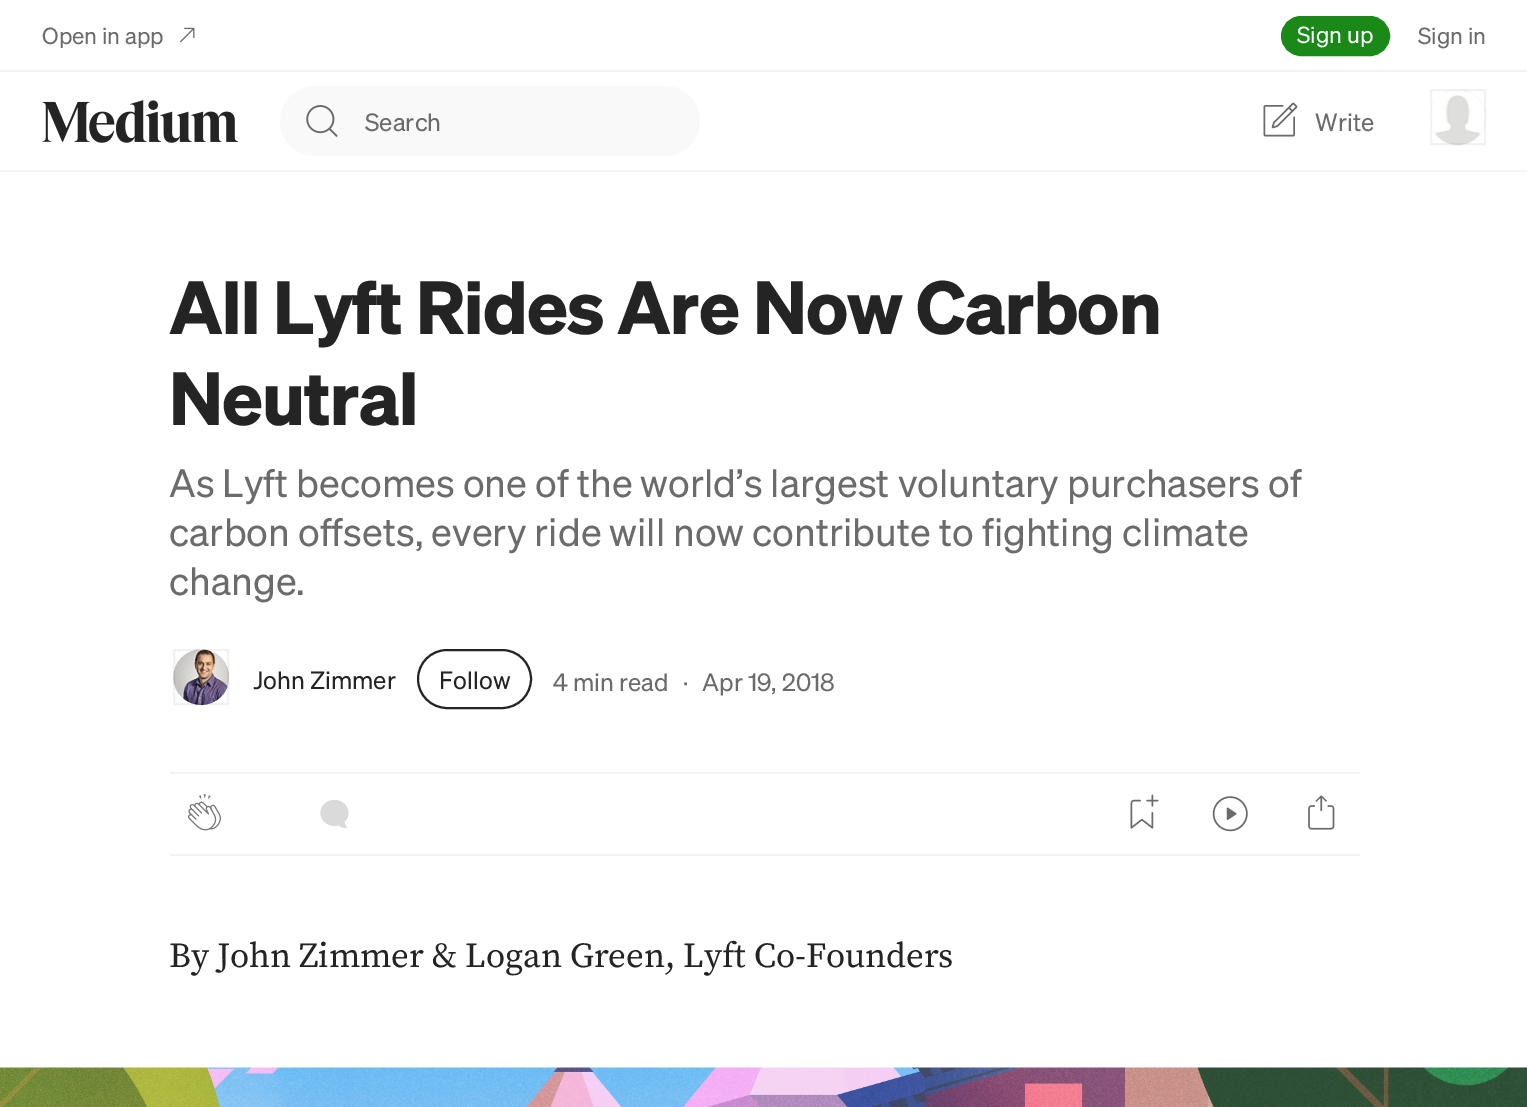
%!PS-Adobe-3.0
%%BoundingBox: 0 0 1527 1107
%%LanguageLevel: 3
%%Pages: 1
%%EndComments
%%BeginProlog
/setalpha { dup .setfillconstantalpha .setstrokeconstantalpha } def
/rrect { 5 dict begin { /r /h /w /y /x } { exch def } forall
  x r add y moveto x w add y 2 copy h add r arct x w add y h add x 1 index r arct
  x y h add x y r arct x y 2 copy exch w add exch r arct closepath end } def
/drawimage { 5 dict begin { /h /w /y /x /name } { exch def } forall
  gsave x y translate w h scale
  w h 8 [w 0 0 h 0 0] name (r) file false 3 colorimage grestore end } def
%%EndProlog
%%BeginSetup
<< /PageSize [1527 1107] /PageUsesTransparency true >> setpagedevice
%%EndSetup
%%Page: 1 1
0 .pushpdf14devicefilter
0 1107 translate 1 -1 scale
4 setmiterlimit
1 setgray
0 0 1527 1107 rectfill
0.949 setgray
0 70 1527 2 rectfill
(images/1.raw) 180 27 15 16 drawimage
0.102 0.537 0.09 setrgbcolor
1282 17 107 38 19 rrect gsave fill grestore
2 setlinewidth
stroke
0.949 setgray
0 170 1527 2 rectfill
(images/2.raw) 42 100 196 43 drawimage
0.976 setgray
280 86 420 70 35 rrect fill
(images/3.raw) 306 105 32 32 drawimage
(images/4.raw) 1263 102 35 35 drawimage
0.949 setgray
newpath 1458 117 28 0 360 arc closepath fill
(images/5.raw) 1430 89 56 57 drawimage
0.05 setalpha
0 setgray
1431 90 54 54 rectstroke
1 setalpha
0.949 setgray
newpath 201 677 28 0 360 arc closepath fill
(images/6.raw) 173 649 56 57 drawimage
0.05 setalpha
0 setgray
174 650 54 54 rectstroke
1 setalpha
0.141 setgray
418 650 113 58 29 rrect stroke
0.949 setgray
170 772 1190 2 rectfill
170 854 1190 2 rectfill
(images/7.raw) 188 794 33 37 drawimage
(images/8.raw) 320 799 29 30 drawimage
(images/9.raw) 1130 794 29 35 drawimage
(images/10.raw) 1212 796 36 36 drawimage
(images/11.raw) 1308 795 27 35 drawimage
(images/12.raw) 0 1067 1527 40 drawimage
/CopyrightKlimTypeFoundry-Italic [22.75 0 0 -22.75 0 0] selectfont
0.42 setgray
42 44 moveto (Open in app) show
1 setgray
1297 43 moveto (Sign up) show
0.42 setgray
1418 44 moveto (Sign in) show
/CopyrightKlimTypeFoundry-Italic [24.5 0 0 -24.5 0 0] selectfont
365 131 moveto (Search) show
1315 131 moveto (Write) show
/CopyrightKlimTypeFoundry-BoldItalic [73.5 0 0 -73.5 0 0] selectfont
0.141 setgray
169 334 moveto -0.8 0 (All Lyft Rides Are Now Carbon) ashow
169 425 moveto -0.8 0 (Neutral) ashow
/CopyrightKlimTypeFoundry-Italic [38.5 0 0 -38.5 0 0] selectfont
0.42 setgray
169 497 moveto (As Lyft becomes one of the world’s largest voluntary purchasers of) show
169 546 moveto (carbon offsets, every ride will now contribute to fighting climate) show
169 595 moveto (change.) show
/CopyrightKlimTypeFoundry-Italic [24.5 0 0 -24.5 0 0] selectfont
0.141 setgray
253 689 moveto (John Zimmer) show
439 689 moveto (Follow) show
0.42 setgray
553 691 moveto (4 min read) show
683 691 moveto (·) show
702 691 moveto (Apr 19, 2018) show
/SourceSerifPro-Regular [35 0 0 -35 0 0] selectfont
0.141 setgray
169 967 moveto -0.1 0 (By John Zimmer & Logan Green, Lyft Co-Founders) ashow
.poppdf14devicefilter showpage
%%EOF
